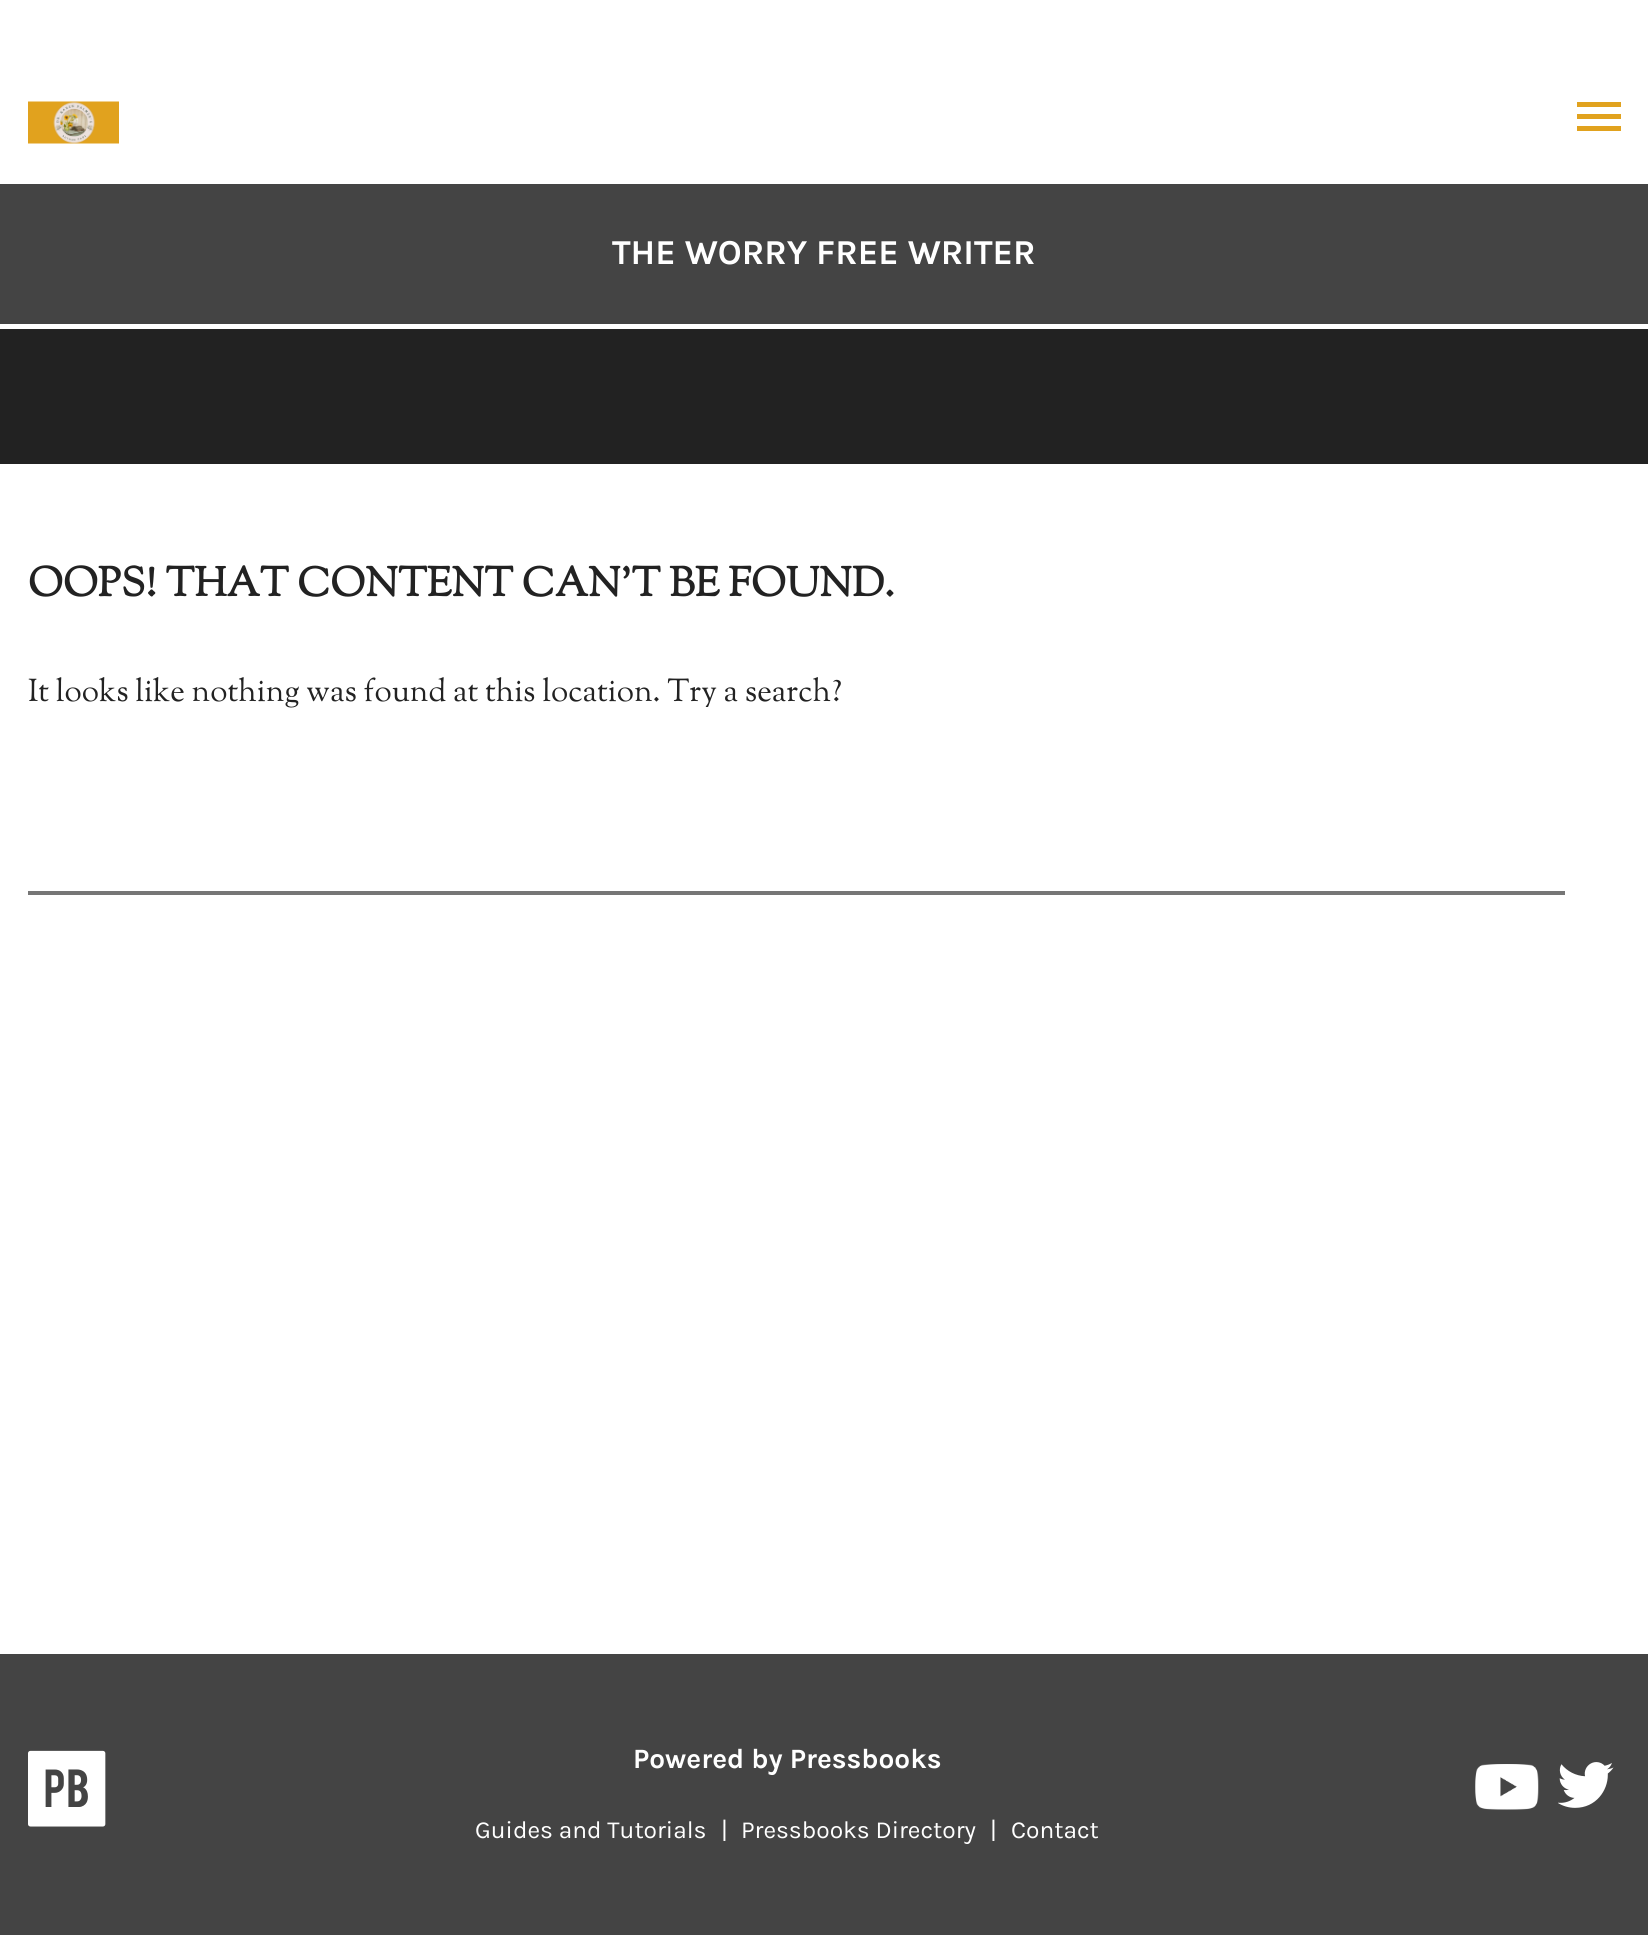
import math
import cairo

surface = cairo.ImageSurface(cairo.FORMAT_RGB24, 1648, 1935)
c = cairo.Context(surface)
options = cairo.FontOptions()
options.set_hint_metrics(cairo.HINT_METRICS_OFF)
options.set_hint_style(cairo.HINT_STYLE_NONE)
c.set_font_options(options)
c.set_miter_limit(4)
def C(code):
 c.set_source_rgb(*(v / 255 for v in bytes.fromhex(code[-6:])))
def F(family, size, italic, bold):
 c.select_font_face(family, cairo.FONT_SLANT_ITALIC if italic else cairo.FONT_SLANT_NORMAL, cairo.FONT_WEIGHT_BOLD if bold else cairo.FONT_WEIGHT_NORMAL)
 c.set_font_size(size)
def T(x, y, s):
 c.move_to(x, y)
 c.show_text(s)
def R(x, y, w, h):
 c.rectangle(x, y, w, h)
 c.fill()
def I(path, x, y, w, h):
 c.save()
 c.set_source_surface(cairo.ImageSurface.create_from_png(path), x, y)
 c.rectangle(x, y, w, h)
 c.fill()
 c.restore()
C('ffffff')
c.paint()
I('1.png',28,101,91,43)
C('e1a21e')
R(1577,114,44,5)
R(1577,102,44,5)
R(1577,126,44,5)
C('222222')
R(0,329,1648,135)
C('444444')
R(0,184,1648,140)
F('Karla',35,0,1)
C('ffffff')
T(612,264,'THE WORRY FREE WRITER')
F('Sorts Mill Goudy',40.95,0,1)
C('222222')
T(28,596,'OOPS! THAT CONTENT CAN’T BE FOUND.')
F('Sorts Mill Goudy',31.5,0,0)
T(28,701,'It looks like nothing was found at this location. Try a search?')
C('767676')
R(28,891,1537,4)
C('444444')
R(0,1654,1648,281)
I('2.png',28,1750,78,77)
F('Karla',28,0,1)
C('ffffff')
T(633,1768,'Powered by Pressbooks')
F('Karla',24.5,0,0)
T(475,1838,'Guides and Tutorials')
T(721,1838,'|')
T(741,1838,'Pressbooks Directory')
T(990,1838,'|')
T(1011,1838,'Contact')
I('3.png',1475,1764,64,46)
I('4.png',1558,1762,56,46)
surface.write_to_png('o.png')
